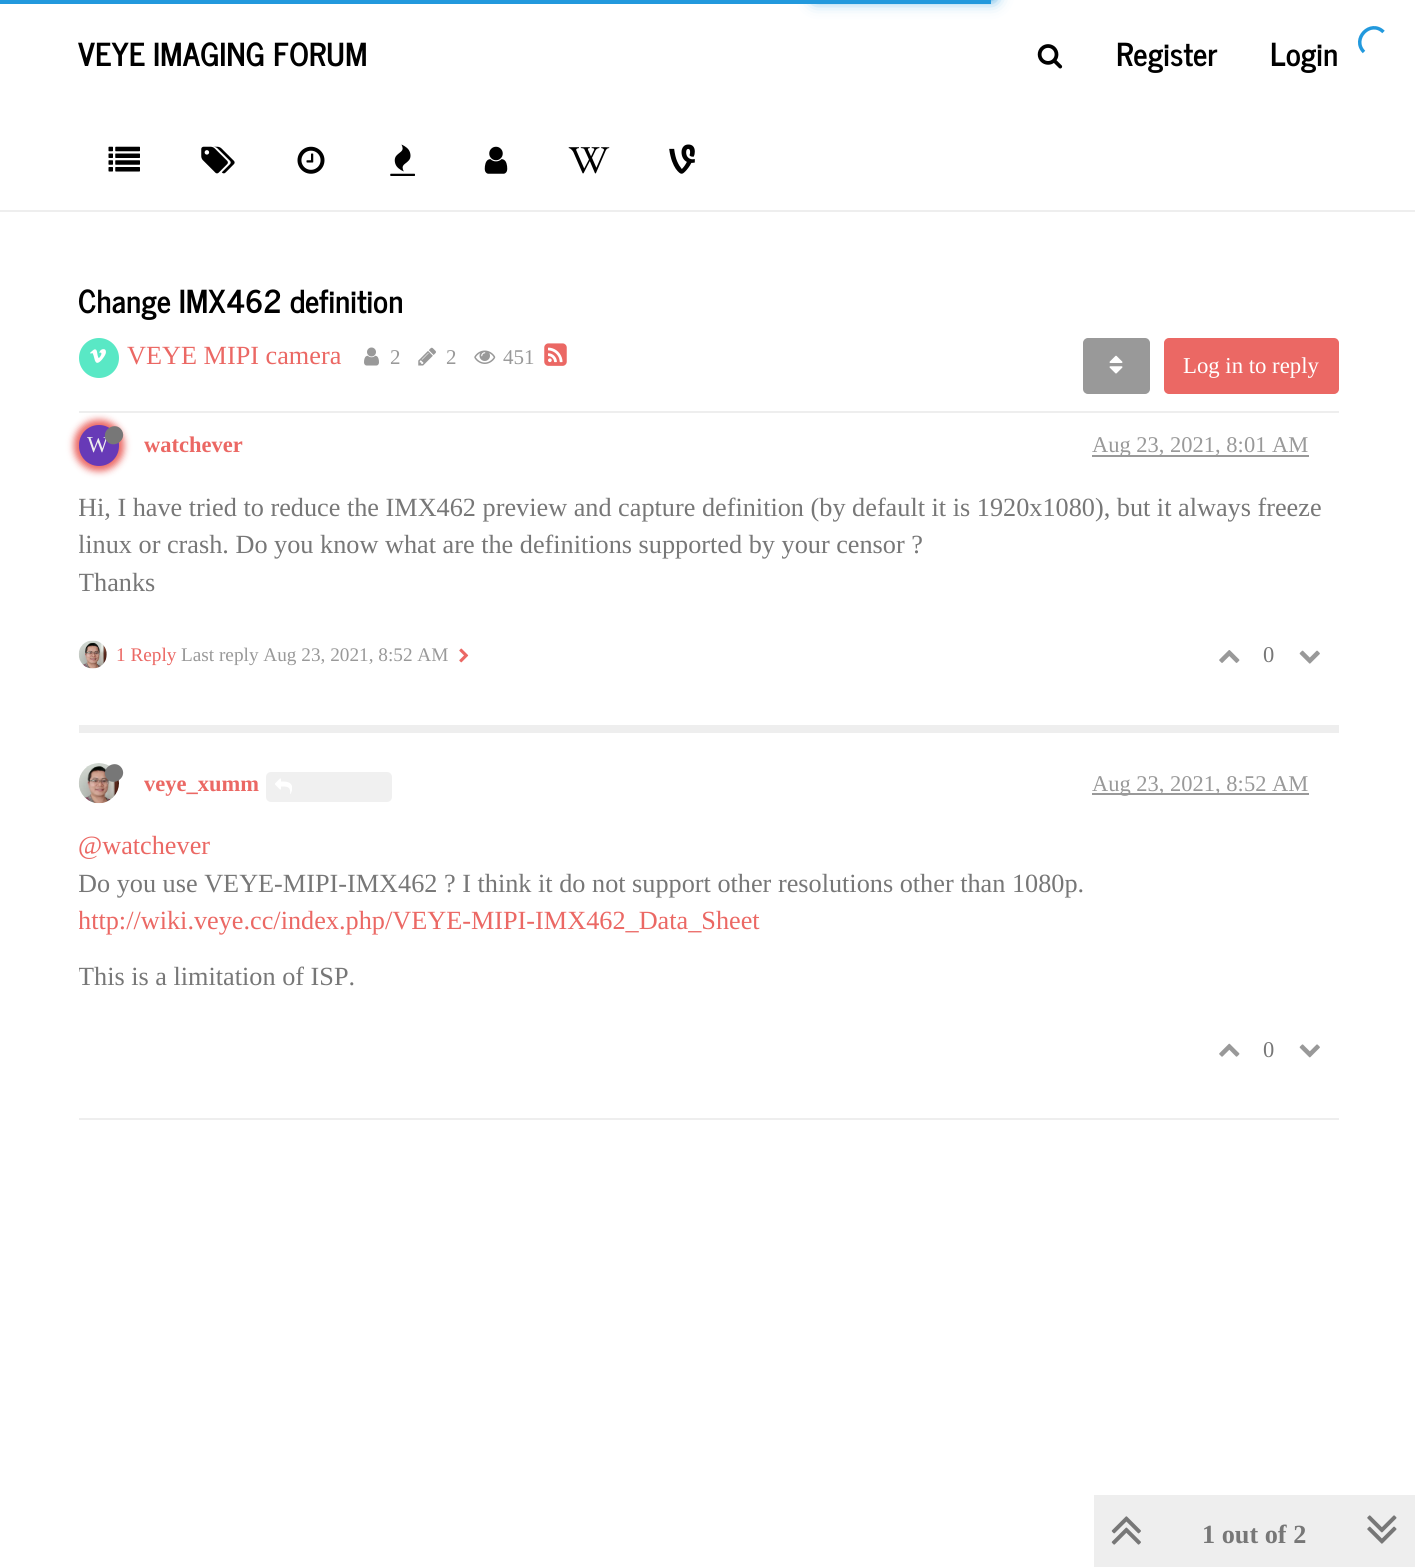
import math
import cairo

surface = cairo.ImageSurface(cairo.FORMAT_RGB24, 1415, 1567)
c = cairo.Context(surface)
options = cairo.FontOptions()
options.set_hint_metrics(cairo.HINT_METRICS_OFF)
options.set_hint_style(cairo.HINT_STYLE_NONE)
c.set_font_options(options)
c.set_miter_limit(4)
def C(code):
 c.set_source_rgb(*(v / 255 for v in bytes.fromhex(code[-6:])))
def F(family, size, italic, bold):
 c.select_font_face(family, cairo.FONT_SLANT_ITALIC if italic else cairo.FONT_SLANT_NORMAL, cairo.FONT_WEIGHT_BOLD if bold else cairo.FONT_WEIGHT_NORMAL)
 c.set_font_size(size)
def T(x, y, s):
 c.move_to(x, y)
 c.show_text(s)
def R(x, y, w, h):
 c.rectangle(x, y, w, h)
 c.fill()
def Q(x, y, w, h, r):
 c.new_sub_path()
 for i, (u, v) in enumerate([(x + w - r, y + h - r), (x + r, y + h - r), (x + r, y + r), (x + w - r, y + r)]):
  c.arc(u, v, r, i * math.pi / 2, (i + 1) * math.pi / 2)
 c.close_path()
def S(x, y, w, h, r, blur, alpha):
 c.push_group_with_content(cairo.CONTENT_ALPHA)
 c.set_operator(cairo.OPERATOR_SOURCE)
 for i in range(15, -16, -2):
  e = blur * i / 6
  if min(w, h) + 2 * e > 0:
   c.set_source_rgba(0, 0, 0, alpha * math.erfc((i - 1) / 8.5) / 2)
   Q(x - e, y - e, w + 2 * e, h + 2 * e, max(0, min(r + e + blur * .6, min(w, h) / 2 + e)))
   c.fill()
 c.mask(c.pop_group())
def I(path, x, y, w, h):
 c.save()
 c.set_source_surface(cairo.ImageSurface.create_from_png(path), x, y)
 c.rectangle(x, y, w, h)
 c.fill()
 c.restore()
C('ffffff')
c.paint()
C('2299dd')
R(0,0,991,4)
C('2299dd')
S(817,-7,175,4,0,4.5,1)
S(817,-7,175,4,0,9,1)
c.new_path()
c.move_to(1364,52)
c.curve_to(1351,39,1370.5,19,1383.5,32)
C('2299dd')
c.set_line_width(3.5)
c.stroke()
C('eeeeee')
R(0,210,1415,2)
F('News Cycle',31.5,0,1)
C('000000')
T(78,66,'VEYE IMAGING FORUM')
I('1.png',1037,44,26,25)
T(1116,66,'Register')
T(1270,66,'Login')
I('2.png',108,146,32,26)
I('3.png',201,146,34,28)
I('4.png',297,146,28,28)
I('5.png',390,144,25,32)
I('6.png',484,146,24,28)
I('7.png',568,147,42,27)
I('8.png',669,144,26,30)
T(78,313,'Change IMX462 definition')
C('eb6864')
S(74,420,50,51,25,3.5,1)
C('eeeeee')
R(79,411,1260,2)
C('59e8c5')
c.arc(99,358,20,0,2 * math.pi)
c.fill()
I('9.png',90,349,16,14)
F('Liberation Serif',26.25,0,0)
C('eb6864')
T(127,364,'VEYE MIPI camera')
I('10.png',364,347,15,19)
F('Liberation Serif',21,0,0)
C('999999')
T(390,364,'2')
I('11.png',418,347,18,19)
T(446,364,'2')
I('12.png',474,350,22,14)
T(503,364,'451')
I('13.png',544,343,23,23)
Q(1084,339,65,54,4)
c.fill_preserve()
c.set_line_width(2)
c.stroke()
I('14.png',1109,355,14,19)
C('eb6864')
Q(1165,339,173,54,4)
c.fill_preserve()
c.stroke()
F('Liberation Serif',22.75,0,0)
C('ffffff')
T(1183,373,'Log in to reply')
C('eeeeee')
R(79,725,1260,8)
C('673ab7')
Q(79,425,40,41,20)
c.fill()
C('eeeeee')
T(87,452,'W')
C('777777')
c.new_path()
c.move_to(122,430.5)
c.curve_to(127.5,441,112,450,106,440)
c.curve_to(100.5,429.5,116,420.5,122,430.5)
c.close_path()
c.fill()
F('Liberation Serif',22.5,0,1)
C('eb6864')
T(144,452,'watchever')
C('999999')
R(1092,455,217,2)
F('Liberation Serif',22.5,0,0)
T(1092,452,'Aug 23, 2021, 8:01 AM')
c.save()
c.rectangle(79,490,1260,133)
c.clip()
F('Liberation Serif',26.25,0,0)
C('777777')
T(78,516,'Hi, I have tried to reduce the IMX462 preview and capture definition (by default it is 1920x1080), but it always freeze')
T(78,553,'linux or crash. Do you know what are the definitions supported by your censor ?')
T(78,591,'Thanks')
c.restore()
I('15.png',78,640,29,29)
F('Liberation Serif',19.25,0,0)
C('eb6864')
T(116,661,'1 Reply')
C('999999')
T(181,661,'Last reply Aug 23, 2021, 8:52 AM')
I('16.png',459,648,10,15)
I('17.png',1219,650,21,13)
F('Liberation Serif',22.5,0,0)
C('777777')
T(1263,662,'0')
I('18.png',1299,650,21,14)
C('eeeeee')
R(79,1118,1260,2)
I('19.png',78,763,41,41)
C('777777')
c.new_path()
c.move_to(122,768.5)
c.curve_to(127.5,778.5,112,787.5,106,777.5)
c.curve_to(100.5,767.5,116,758.5,122,768.5)
c.close_path()
c.fill()
F('Liberation Serif',22.5,0,1)
C('eb6864')
T(144,791,'veye_xumm')
C('f0f0f0')
Q(266,772,126,30,5)
c.fill()
I('20.png',275,778,17,16)
C('999999')
R(1092,793,217,2)
F('Liberation Serif',22.5,0,0)
T(1092,791,'Aug 23, 2021, 8:52 AM')
F('Liberation Serif',26.25,0,0)
C('eb6864')
T(78,854,'@watchever')
c.save()
c.rectangle(79,828,1260,189)
c.clip()
C('777777')
T(78,892,'Do you use VEYE-MIPI-IMX462 ? I think it do not support other resolutions other than 1080p.')
C('eb6864')
T(78,929,'http://wiki.veye.cc/index.php/VEYE-MIPI-IMX462_Data_Sheet')
C('777777')
T(78,985,'This is a limitation of ISP.')
c.restore()
I('21.png',1219,1043,21,14)
F('Liberation Serif',22.5,0,0)
C('777777')
T(1263,1057,'0')
I('22.png',1299,1044,21,14)
C('eeeeee')
R(1094,1495,321,72)
I('23.png',1111,1516,30,29)
F('Liberation Serif',26.25,0,1)
C('777777')
T(1202,1543,'1 out of 2')
I('24.png',1367,1515,30,29)
surface.write_to_png('o.png')
